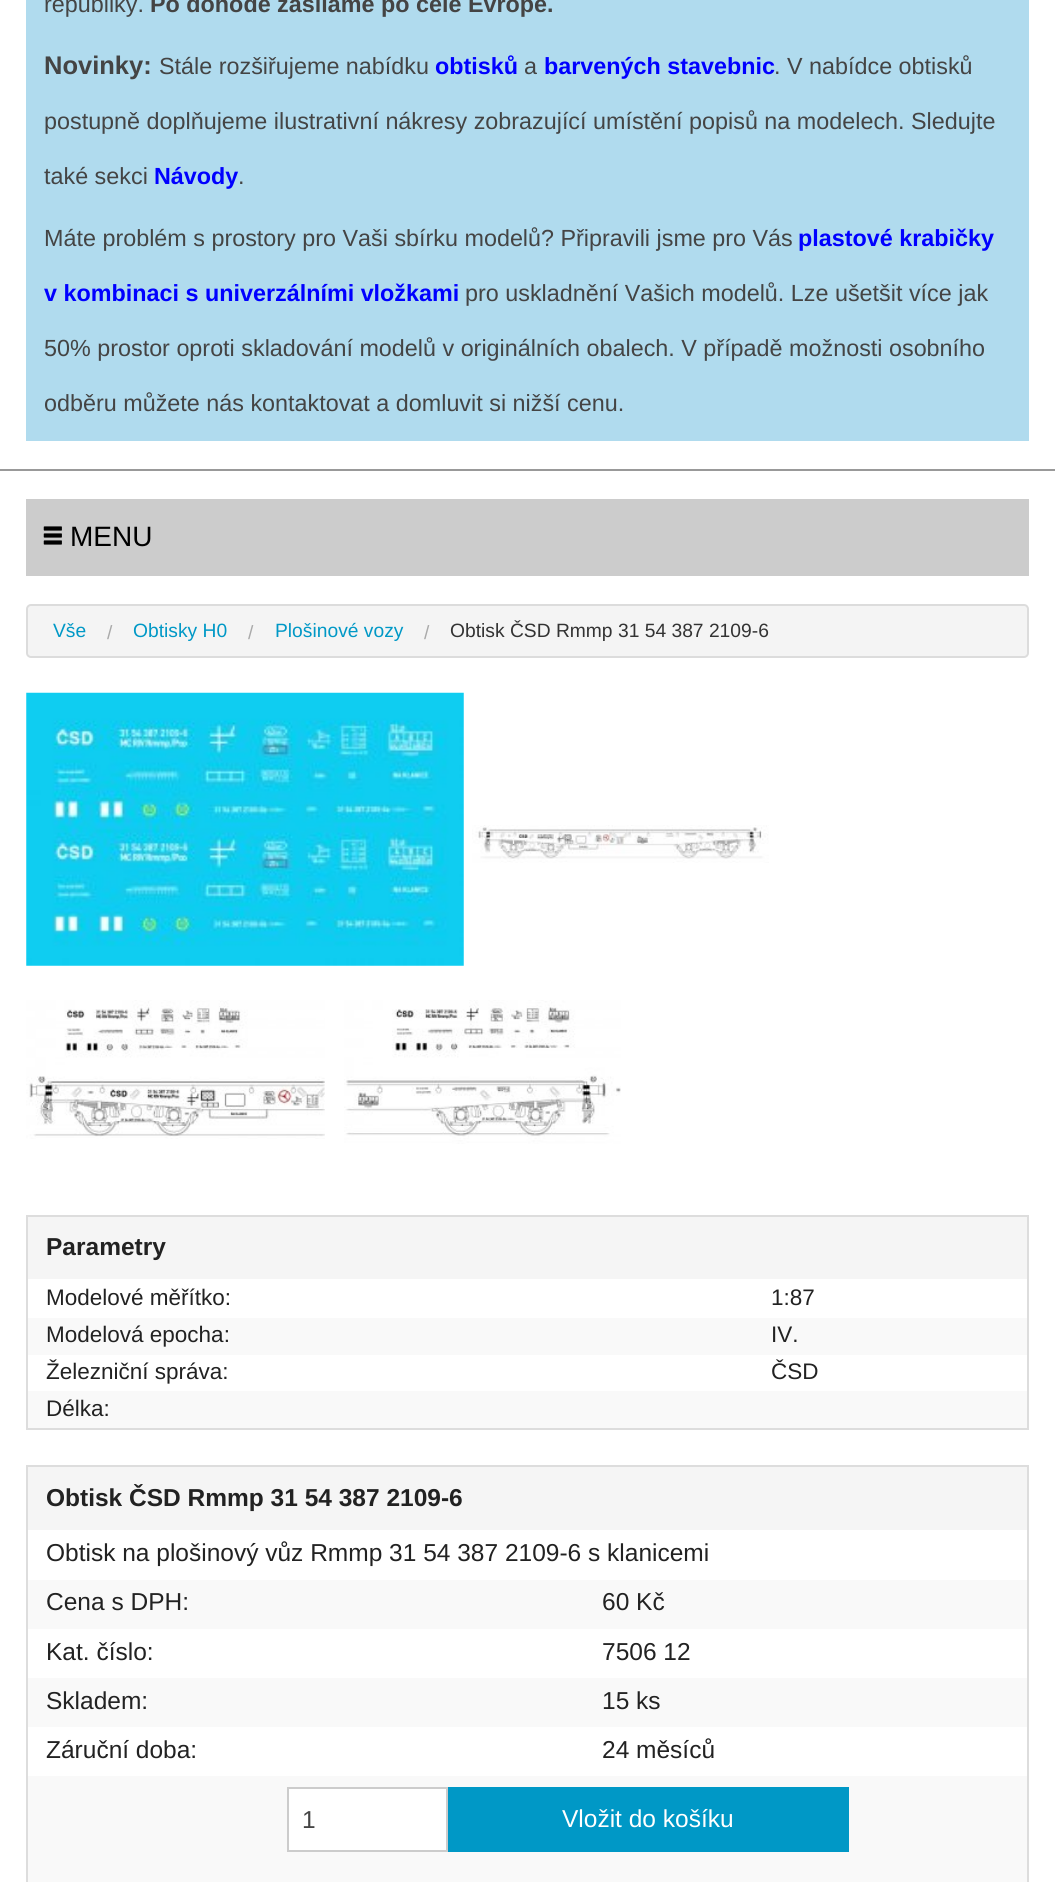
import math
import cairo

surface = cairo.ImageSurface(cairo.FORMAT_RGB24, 1055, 1882)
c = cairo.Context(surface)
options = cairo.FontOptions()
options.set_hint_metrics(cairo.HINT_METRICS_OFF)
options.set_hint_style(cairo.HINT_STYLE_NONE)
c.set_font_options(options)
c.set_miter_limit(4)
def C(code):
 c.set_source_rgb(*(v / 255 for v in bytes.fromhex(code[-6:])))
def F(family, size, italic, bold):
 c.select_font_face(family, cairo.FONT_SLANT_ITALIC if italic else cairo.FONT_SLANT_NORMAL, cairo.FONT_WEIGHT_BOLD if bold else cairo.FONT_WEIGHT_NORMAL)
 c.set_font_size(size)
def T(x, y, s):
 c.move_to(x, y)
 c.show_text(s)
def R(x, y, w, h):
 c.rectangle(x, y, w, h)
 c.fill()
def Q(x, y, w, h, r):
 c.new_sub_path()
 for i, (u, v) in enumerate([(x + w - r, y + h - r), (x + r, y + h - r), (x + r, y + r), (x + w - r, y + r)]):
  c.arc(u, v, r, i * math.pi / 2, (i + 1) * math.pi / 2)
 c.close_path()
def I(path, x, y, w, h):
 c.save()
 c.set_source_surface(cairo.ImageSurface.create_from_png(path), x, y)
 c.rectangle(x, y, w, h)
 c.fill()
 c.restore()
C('ffffff')
c.paint()
C('b0dbee')
R(26,0,1003,441)
F('Liberation Sans',23.35,0,0)
C('444444')
T(44,12,'republiky.')
F('Liberation Sans',23.35,0,1)
T(150,12,'Po dohodě zasíláme po celé Evropě.')
F('Liberation Sans',25.5,0,1)
T(44,74,'Novinky:')
F('Liberation Sans',23.35,0,0)
T(159,74,'Stále rozšiřujeme nabídku')
F('Liberation Sans',23.35,0,1)
C('0000ff')
T(435,74,'obtisků')
F('Liberation Sans',23.35,0,0)
C('444444')
T(524,74,'a')
F('Liberation Sans',23.35,0,1)
C('0000ff')
T(544,74,'barvených stavebnic')
F('Liberation Sans',23.35,0,0)
C('444444')
T(774,74,'. V nabídce obtisků')
T(44,129,'postupně doplňujeme ilustrativní nákresy zobrazující umístění popisů na modelech. Sledujte')
T(44,184,'také sekci')
F('Liberation Sans',23.35,0,1)
C('0000ff')
T(154,184,'Návody')
F('Liberation Sans',23.35,0,0)
C('444444')
T(238,184,'.')
T(44,246,'Máte problém s prostory pro Vaši sbírku modelů? Připravili jsme pro Vás')
F('Liberation Sans',23.35,0,1)
C('0000ff')
T(798,246,'plastové krabičky')
T(44,301,'v kombinaci s univerzálními vložkami')
F('Liberation Sans',23.35,0,0)
C('444444')
T(465,301,'pro uskladnění Vašich modelů. Lze ušetšit více jak')
T(44,356,'50% prostor oproti skladování modelů v originálních obalech. V případě možnosti osobního')
T(44,411,'odběru můžete nás kontaktovat a domluvit si nižší cenu.')
C('999999')
R(0,469,1055,2)
C('cccccc')
R(26,499,1003,77)
I('1.png',43,526,19,19)
F('Liberation Sans',28,0,0)
C('000000')
T(70,546,'MENU')
C('f4f4f4')
Q(27,605,1001,52,4)
c.fill_preserve()
C('dcdcdc')
c.stroke()
F('Liberation Sans',19.25,0,0)
C('0098c6')
T(53,637,'Vše')
C('aaaaaa')
T(107,639,'/')
C('0098c6')
T(133,637,'Obtisky H0')
C('aaaaaa')
T(248,639,'/')
C('0098c6')
T(275,637,'Plošinové vozy')
C('aaaaaa')
T(424,639,'/')
C('333333')
T(450,637,'Obtisk ČSD Rmmp 31 54 387 2109-6')
I('2.png',26,692,438,274)
I('3.png',472,825,297,38)
I('4.png',26,1000,299,139)
I('5.png',344,1000,277,144)
C('dddddd')
R(26,1215,1003,2)
R(1027,1215,2,215)
R(26,1428,1003,2)
R(26,1215,2,215)
C('f5f5f5')
R(28,1217,999,62)
F('Liberation Sans',24.5,0,1)
C('222222')
T(46,1255,'Parametry')
F('Liberation Sans',22.5,0,0)
T(46,1305,'Modelové měřítko:')
T(771,1305,'1:87')
C('f9f9f9')
R(28,1318,999,37)
C('222222')
T(46,1342,'Modelová epocha:')
T(771,1342,'IV.')
T(46,1379,'Železniční správa:')
T(771,1379,'ČSD')
C('f9f9f9')
R(28,1391,999,37)
C('222222')
T(46,1416,'Délka:')
C('dddddd')
R(26,1465,1003,2)
R(1027,1465,2,417)
R(26,1465,2,417)
C('f5f5f5')
R(28,1467,999,63)
F('Liberation Sans',24.5,0,1)
C('222222')
T(46,1506,'Obtisk ČSD Rmmp 31 54 387 2109-6')
F('Liberation Sans',24.5,0,0)
T(46,1561,'Obtisk na plošinový vůz Rmmp 31 54 387 2109-6 s klanicemi')
C('f9f9f9')
R(28,1580,999,49)
C('222222')
T(46,1610,'Cena s DPH:')
T(602,1610,'60 Kč')
T(46,1660,'Kat. číslo:')
T(602,1660,'7506 12')
C('f9f9f9')
R(28,1678,999,49)
C('222222')
T(46,1709,'Skladem:')
T(602,1709,'15 ks')
T(46,1758,'Záruční doba:')
T(602,1758,'24 měsíců')
C('f9f9f9')
R(28,1776,999,106)
C('ffffff')
c.rectangle(288,1788,159,63)
c.fill_preserve()
C('cccccc')
c.stroke()
C('444444')
T(302,1828,'1')
C('0098c6')
R(448,1787,401,65)
C('ffffff')
T(562,1827,'Vložit do košíku')
surface.write_to_png('o.png')
